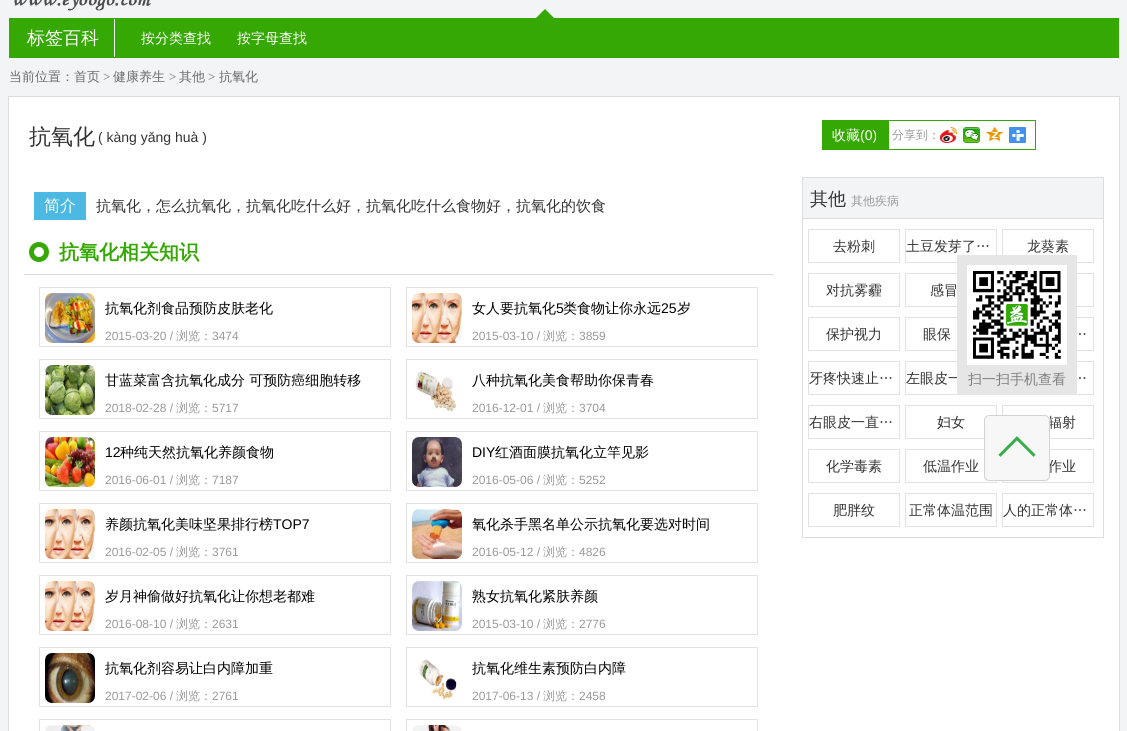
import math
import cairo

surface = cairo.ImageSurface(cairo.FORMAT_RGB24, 1127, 731)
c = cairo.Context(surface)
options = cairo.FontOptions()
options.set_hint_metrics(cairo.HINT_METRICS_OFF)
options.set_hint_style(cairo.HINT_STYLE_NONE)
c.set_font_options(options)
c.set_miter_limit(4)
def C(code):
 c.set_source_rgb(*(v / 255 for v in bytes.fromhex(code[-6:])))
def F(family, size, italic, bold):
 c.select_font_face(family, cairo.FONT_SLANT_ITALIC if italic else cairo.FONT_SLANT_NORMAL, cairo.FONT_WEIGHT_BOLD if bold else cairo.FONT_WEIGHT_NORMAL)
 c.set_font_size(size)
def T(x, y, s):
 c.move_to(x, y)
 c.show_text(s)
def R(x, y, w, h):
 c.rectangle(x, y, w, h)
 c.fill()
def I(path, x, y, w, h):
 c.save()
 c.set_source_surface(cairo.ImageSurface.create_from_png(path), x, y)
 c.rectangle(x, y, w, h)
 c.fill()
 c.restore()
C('f3f4f6')
c.paint()
I('1.png',14,0,137,11)
C('36a803')
c.new_path()
c.move_to(554,18)
c.line_to(536,18)
c.line_to(545,9)
c.close_path()
c.fill()
R(9,18,1110,40)
C('f3f4f6')
R(114,19,1,38)
F('WenQuanYi Zen Hei Medium',18,0,0)
C('ffffff')
T(27,44,'标签百科')
F('WenQuanYi Zen Hei Medium',14,0,0)
T(141,43,'按分类查找')
T(237,43,'按字母查找')
F('WenQuanYi Zen Hei Medium',13,0,0)
C('6a6a6a')
T(9,81,'当前位置：首页')
F('Liberation Serif',13,0,0)
T(103,81,'>')
F('WenQuanYi Zen Hei Medium',13,0,0)
T(113,81,'健康养生')
F('Liberation Serif',13,0,0)
T(169,81,'>')
F('WenQuanYi Zen Hei Medium',13,0,0)
T(179,81,'其他')
F('Liberation Serif',13,0,0)
T(208,81,'>')
F('WenQuanYi Zen Hei Medium',13,0,0)
T(219,81,'抗氧化')
C('ffffff')
c.rectangle(8.5,96.5,1111,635)
c.fill_preserve()
C('dddddd')
c.set_line_width(1)
c.stroke()
F('WenQuanYi Zen Hei Medium',22,0,0)
C('333333')
T(29,144,'抗氧化')
F('Liberation Sans',14,0,0)
T(98,142,'( kàng yǎng huà )')
C('36a803')
R(822,120,66,30)
F('WenQuanYi Zen Hei Medium',14,0,0)
C('ffffff')
T(832,140,'收藏')
F('Liberation Sans',14,0,0)
T(860,140,'(0)')
c.rectangle(888.5,120.5,147,29)
C('36a803')
c.stroke()
F('WenQuanYi Zen Hei Medium',12,0,0)
C('999999')
T(892,139,'分享到：')
I('2.png',940,127,17,16)
I('3.png',963,127,17,16)
I('4.png',986,127,17,14)
I('5.png',1009,127,17,16)
C('4bb9e1')
R(34,192,52,28)
F('WenQuanYi Zen Hei Medium',16,0,0)
C('ffffff')
T(44,211,'简介')
F('WenQuanYi Zen Hei Medium',15,0,0)
C('333333')
T(96,211,'抗氧化，怎么抗氧化，抗氧化吃什么好，抗氧化吃什么食物好，抗氧化的饮食')
C('dddddd')
R(24,274,750,1)
c.new_path()
c.arc(39,252,7.5,0,2 * math.pi)
C('36a803')
c.set_line_width(5)
c.stroke()
F('WenQuanYi Zen Hei',20,0,1)
T(59,259,'抗氧化相关知识')
c.rectangle(39.5,287.5,351,59)
C('e2e2e2')
c.set_line_width(1)
c.stroke()
I('6.png',45,293,50,50)
F('WenQuanYi Zen Hei Medium',14,0,0)
C('000000')
T(105,313,'抗氧化剂食品预防皮肤老化')
F('Liberation Sans',12,0,0)
C('999999')
T(105,340,'2015-03-20 /')
F('WenQuanYi Zen Hei Medium',12,0,0)
T(176,340,'浏览：')
F('Liberation Sans',12,0,0)
T(212,340,'3474')
c.rectangle(406.5,287.5,351,59)
C('e2e2e2')
c.stroke()
I('7.png',412,293,50,50)
F('WenQuanYi Zen Hei Medium',14,0,0)
C('000000')
T(472,313,'女人要抗氧化')
F('Liberation Sans',14,0,0)
T(556,313,'5')
F('WenQuanYi Zen Hei Medium',14,0,0)
T(563,313,'类食物让你永远')
F('Liberation Sans',14,0,0)
T(661,313,'25')
F('WenQuanYi Zen Hei Medium',14,0,0)
T(677,313,'岁')
F('Liberation Sans',12,0,0)
C('999999')
T(472,340,'2015-03-10 /')
F('WenQuanYi Zen Hei Medium',12,0,0)
T(543,340,'浏览：')
F('Liberation Sans',12,0,0)
T(579,340,'3859')
c.rectangle(39.5,359.5,351,59)
C('e2e2e2')
c.stroke()
I('8.png',45,365,50,50)
F('WenQuanYi Zen Hei Medium',14,0,0)
C('000000')
T(105,385,'甘蓝菜富含抗氧化成分 可预防癌细胞转移')
F('Liberation Sans',12,0,0)
C('999999')
T(105,412,'2018-02-28 /')
F('WenQuanYi Zen Hei Medium',12,0,0)
T(176,412,'浏览：')
F('Liberation Sans',12,0,0)
T(212,412,'5717')
c.rectangle(406.5,359.5,351,59)
C('e2e2e2')
c.stroke()
I('9.png',415,371,42,41)
F('WenQuanYi Zen Hei Medium',14,0,0)
C('000000')
T(472,385,'八种抗氧化美食帮助你保青春')
F('Liberation Sans',12,0,0)
C('999999')
T(472,412,'2016-12-01 /')
F('WenQuanYi Zen Hei Medium',12,0,0)
T(543,412,'浏览：')
F('Liberation Sans',12,0,0)
T(579,412,'3704')
c.rectangle(39.5,431.5,351,59)
C('e2e2e2')
c.stroke()
I('10.png',45,437,50,50)
F('Liberation Sans',14,0,0)
C('000000')
T(105,457,'12')
F('WenQuanYi Zen Hei Medium',14,0,0)
T(120,457,'种纯天然抗氧化养颜食物')
F('Liberation Sans',12,0,0)
C('999999')
T(105,484,'2016-06-01 /')
F('WenQuanYi Zen Hei Medium',12,0,0)
T(176,484,'浏览：')
F('Liberation Sans',12,0,0)
T(212,484,'7187')
c.rectangle(406.5,431.5,351,59)
C('e2e2e2')
c.stroke()
I('11.png',412,437,50,50)
F('Liberation Sans',14,0,0)
C('000000')
T(472,457,'DIY')
F('WenQuanYi Zen Hei Medium',14,0,0)
T(495,457,'红酒面膜抗氧化立竿见影')
F('Liberation Sans',12,0,0)
C('999999')
T(472,484,'2016-05-06 /')
F('WenQuanYi Zen Hei Medium',12,0,0)
T(543,484,'浏览：')
F('Liberation Sans',12,0,0)
T(579,484,'5252')
c.rectangle(39.5,503.5,351,59)
C('e2e2e2')
c.stroke()
I('12.png',45,509,50,50)
F('WenQuanYi Zen Hei Medium',14,0,0)
C('000000')
T(105,529,'养颜抗氧化美味坚果排行榜')
F('Liberation Sans',14,0,0)
T(273,529,'TOP7')
F('Liberation Sans',12,0,0)
C('999999')
T(105,556,'2016-02-05 /')
F('WenQuanYi Zen Hei Medium',12,0,0)
T(176,556,'浏览：')
F('Liberation Sans',12,0,0)
T(212,556,'3761')
c.rectangle(406.5,503.5,351,59)
C('e2e2e2')
c.stroke()
I('13.png',412,509,50,50)
F('WenQuanYi Zen Hei Medium',14,0,0)
C('000000')
T(472,529,'氧化杀手黑名单公示抗氧化要选对时间')
F('Liberation Sans',12,0,0)
C('999999')
T(472,556,'2016-05-12 /')
F('WenQuanYi Zen Hei Medium',12,0,0)
T(543,556,'浏览：')
F('Liberation Sans',12,0,0)
T(579,556,'4826')
c.rectangle(39.5,575.5,351,59)
C('e2e2e2')
c.stroke()
I('12.png',45,581,50,50)
F('WenQuanYi Zen Hei Medium',14,0,0)
C('000000')
T(105,601,'岁月神偷做好抗氧化让你想老都难')
F('Liberation Sans',12,0,0)
C('999999')
T(105,628,'2016-08-10 /')
F('WenQuanYi Zen Hei Medium',12,0,0)
T(176,628,'浏览：')
F('Liberation Sans',12,0,0)
T(212,628,'2631')
c.rectangle(406.5,575.5,351,59)
C('e2e2e2')
c.stroke()
I('14.png',412,581,50,50)
F('WenQuanYi Zen Hei Medium',14,0,0)
C('000000')
T(472,601,'熟女抗氧化紧肤养颜')
F('Liberation Sans',12,0,0)
C('999999')
T(472,628,'2015-03-10 /')
F('WenQuanYi Zen Hei Medium',12,0,0)
T(543,628,'浏览：')
F('Liberation Sans',12,0,0)
T(579,628,'2776')
c.rectangle(39.5,647.5,351,59)
C('e2e2e2')
c.stroke()
I('15.png',45,653,50,50)
F('WenQuanYi Zen Hei Medium',14,0,0)
C('000000')
T(105,673,'抗氧化剂容易让白内障加重')
F('Liberation Sans',12,0,0)
C('999999')
T(105,700,'2017-02-06 /')
F('WenQuanYi Zen Hei Medium',12,0,0)
T(176,700,'浏览：')
F('Liberation Sans',12,0,0)
T(212,700,'2761')
c.rectangle(406.5,647.5,351,59)
C('e2e2e2')
c.stroke()
I('16.png',418,659,39,42)
F('WenQuanYi Zen Hei Medium',14,0,0)
C('000000')
T(472,673,'抗氧化维生素预防白内障')
F('Liberation Sans',12,0,0)
C('999999')
T(472,700,'2017-06-13 /')
F('WenQuanYi Zen Hei Medium',12,0,0)
T(543,700,'浏览：')
F('Liberation Sans',12,0,0)
T(579,700,'2458')
c.rectangle(39.5,719.5,351,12)
C('e2e2e2')
c.stroke()
I('17.png',45,725,50,6)
c.rectangle(406.5,719.5,351,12)
c.stroke()
I('18.png',412,725,50,6)
C('f3f4f6')
c.rectangle(802.5,177.5,301,41)
c.fill_preserve()
C('dddddd')
c.stroke()
F('WenQuanYi Zen Hei Medium',18,0,0)
C('333333')
T(810,205,'其他')
F('WenQuanYi Zen Hei Medium',12,0,0)
C('999999')
T(851,205,'其他疾病')
C('dddddd')
R(1103,219,1,319)
R(802,537,302,1)
R(802,219,1,319)
c.rectangle(808.5,229.5,91,33)
C('e2e2e2')
c.stroke()
F('WenQuanYi Zen Hei Medium',14,0,0)
C('333333')
T(833,251,'去粉刺')
c.rectangle(905.5,229.5,91,33)
C('e2e2e2')
c.stroke()
C('333333')
T(906,251,'土豆发芽了…')
c.rectangle(1002.5,229.5,91,33)
C('e2e2e2')
c.stroke()
C('333333')
T(1027,251,'龙葵素')
c.rectangle(808.5,273.5,91,33)
C('e2e2e2')
c.stroke()
C('333333')
T(826,295,'对抗雾霾')
c.rectangle(905.5,273.5,91,33)
C('e2e2e2')
c.stroke()
C('333333')
T(930,295,'感冒')
c.rectangle(1002.5,273.5,91,33)
C('e2e2e2')
c.stroke()
c.rectangle(808.5,317.5,91,33)
c.stroke()
C('333333')
T(826,339,'保护视力')
c.rectangle(905.5,317.5,91,33)
C('e2e2e2')
c.stroke()
C('333333')
T(923,339,'眼保')
c.rectangle(1002.5,317.5,91,33)
C('e2e2e2')
c.stroke()
C('333333')
T(1073,339,'…')
c.rectangle(808.5,361.5,91,33)
C('e2e2e2')
c.stroke()
C('333333')
T(809,383,'牙疼快速止…')
c.rectangle(905.5,361.5,91,33)
C('e2e2e2')
c.stroke()
C('333333')
T(906,383,'左眼皮一')
c.rectangle(1002.5,361.5,91,33)
C('e2e2e2')
c.stroke()
C('333333')
T(1073,383,'…')
c.rectangle(808.5,405.5,91,33)
C('e2e2e2')
c.stroke()
C('333333')
T(809,427,'右眼皮一直…')
c.rectangle(905.5,405.5,91,33)
C('e2e2e2')
c.stroke()
C('333333')
T(937,427,'妇女')
c.rectangle(1002.5,405.5,91,33)
C('e2e2e2')
c.stroke()
C('333333')
T(1048,427,'辐射')
c.rectangle(808.5,449.5,91,33)
C('e2e2e2')
c.stroke()
C('333333')
T(826,471,'化学毒素')
c.rectangle(905.5,449.5,91,33)
C('e2e2e2')
c.stroke()
C('333333')
T(923,471,'低温作业')
c.rectangle(1002.5,449.5,91,33)
C('e2e2e2')
c.stroke()
C('333333')
T(1048,471,'作业')
c.rectangle(808.5,493.5,91,33)
C('e2e2e2')
c.stroke()
C('333333')
T(833,515,'肥胖纹')
c.rectangle(905.5,493.5,91,33)
C('e2e2e2')
c.stroke()
C('333333')
T(909,515,'正常体温范围')
c.rectangle(1002.5,493.5,91,33)
C('e2e2e2')
c.stroke()
C('333333')
T(1003,515,'人的正常体…')
C('e6e6e6')
R(957,255,120,140)
I('19.png',967,265,100,100)
C('7f7f7f')
T(968,384,'扫一扫手机查看')
I('20.png',984,415,66,66)
surface.write_to_png('o.png')
